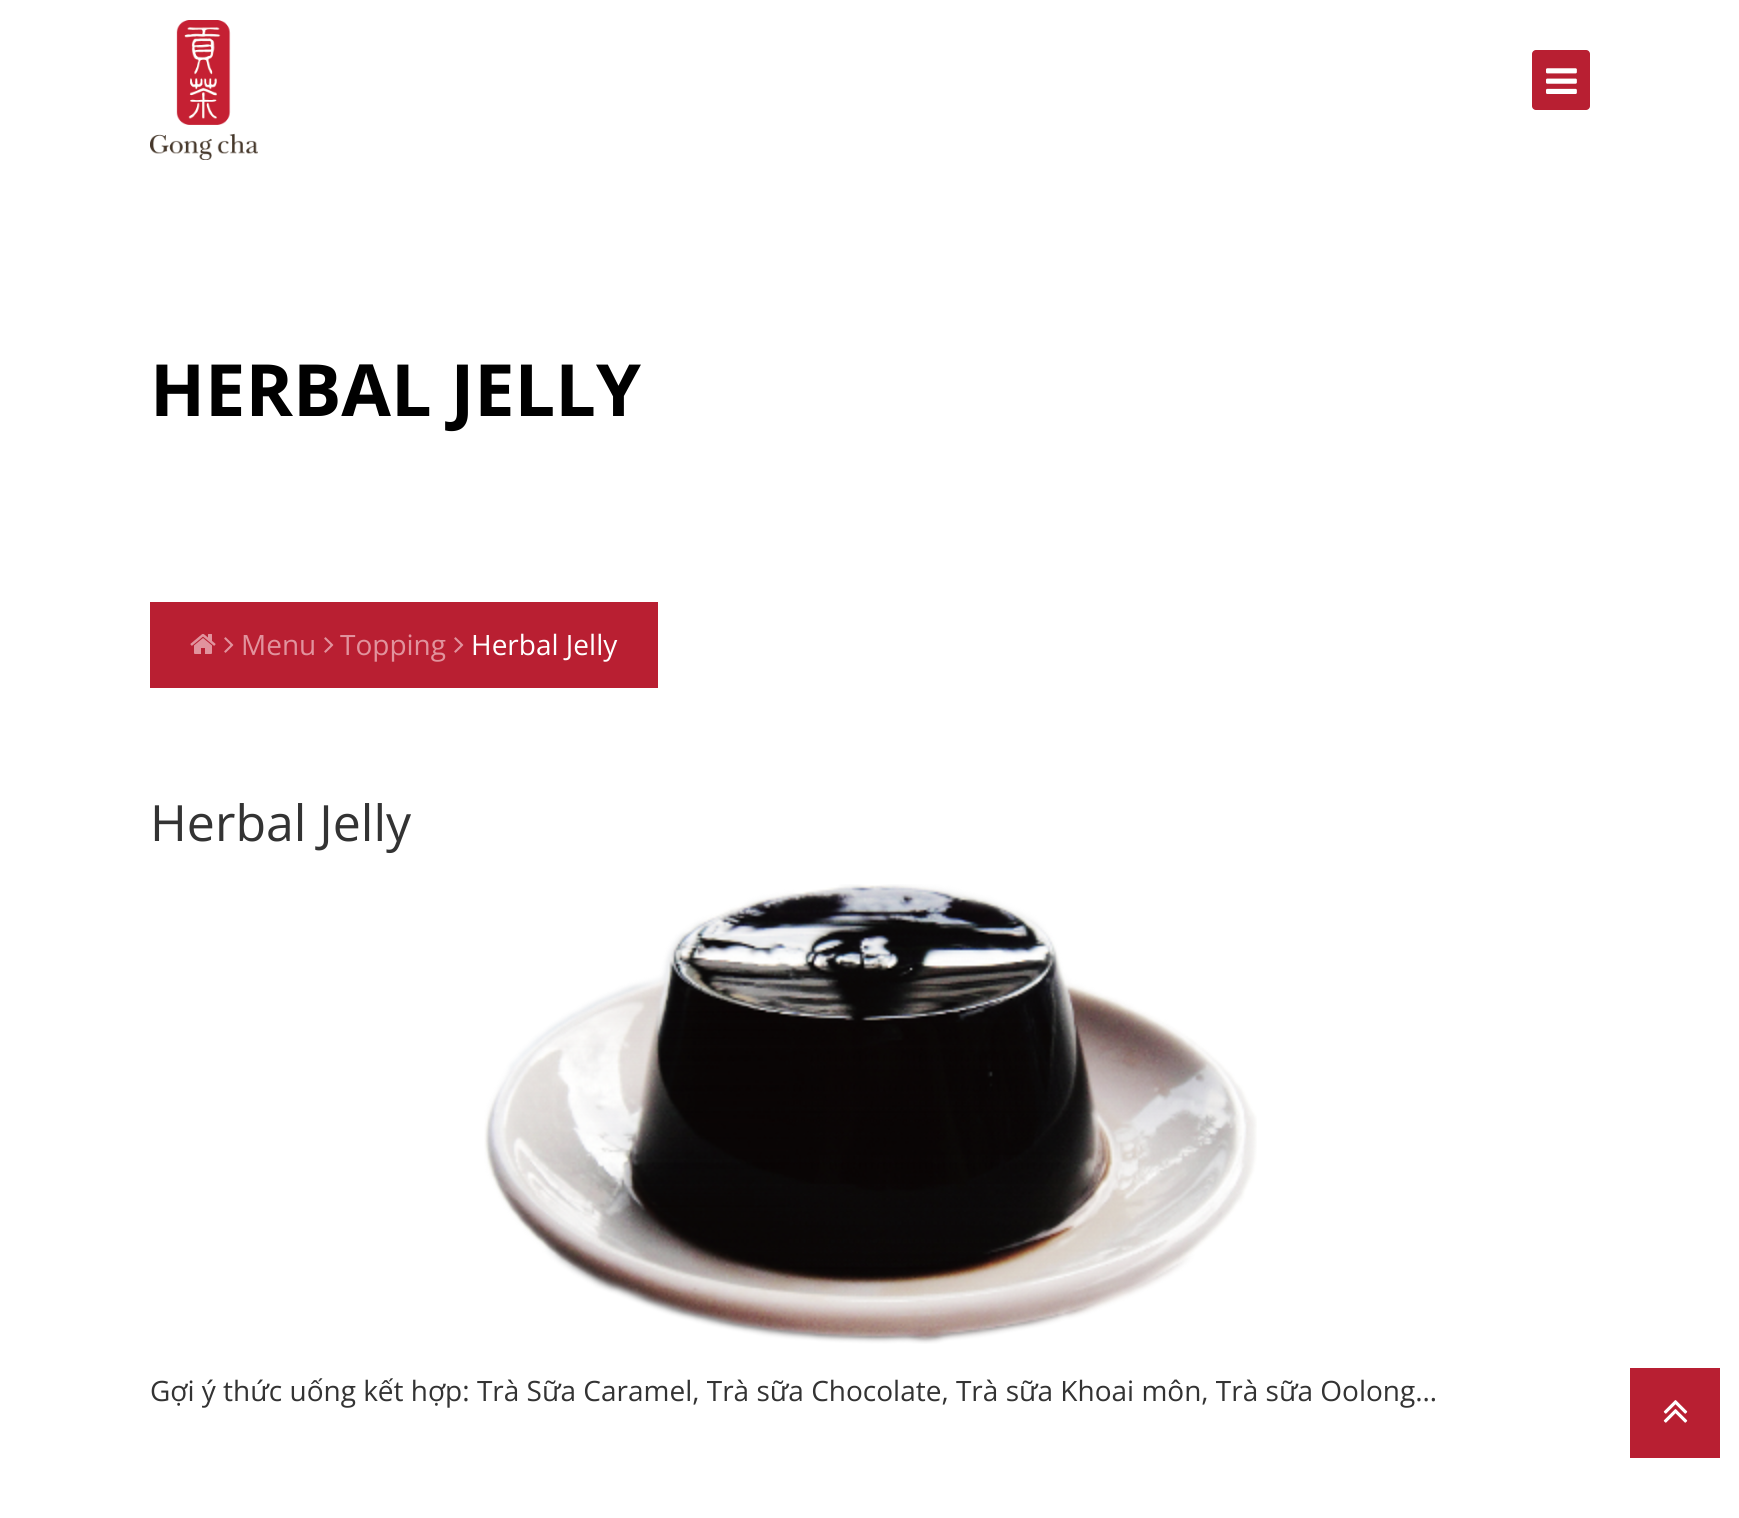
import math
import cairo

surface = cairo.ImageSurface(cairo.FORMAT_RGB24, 1739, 1518)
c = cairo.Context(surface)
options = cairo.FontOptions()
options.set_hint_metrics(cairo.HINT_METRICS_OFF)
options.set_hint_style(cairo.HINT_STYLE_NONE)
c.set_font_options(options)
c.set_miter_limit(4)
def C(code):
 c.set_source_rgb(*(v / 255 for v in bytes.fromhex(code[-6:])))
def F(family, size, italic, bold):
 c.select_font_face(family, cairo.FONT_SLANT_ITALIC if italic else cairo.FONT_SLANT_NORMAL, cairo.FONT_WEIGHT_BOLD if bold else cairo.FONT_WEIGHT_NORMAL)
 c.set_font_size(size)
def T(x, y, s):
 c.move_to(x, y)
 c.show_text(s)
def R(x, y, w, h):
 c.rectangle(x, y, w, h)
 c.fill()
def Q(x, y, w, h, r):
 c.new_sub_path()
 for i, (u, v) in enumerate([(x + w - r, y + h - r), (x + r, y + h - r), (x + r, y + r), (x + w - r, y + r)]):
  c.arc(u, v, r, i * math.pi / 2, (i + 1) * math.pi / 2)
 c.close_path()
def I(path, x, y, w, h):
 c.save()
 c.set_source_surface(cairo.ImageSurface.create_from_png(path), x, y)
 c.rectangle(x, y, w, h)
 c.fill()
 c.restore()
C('ffffff')
c.paint()
I('1.png',150,20,108,140)
C('b81f32')
Q(1532,50,58,60,4)
c.fill()
I('2.png',1546,68,31,26)
F('Open Sans',72,0,1)
C('000000')
T(150,416,'HERBAL JELLY')
C('b91f32')
R(150,602,508,86)
I('3.png',190,634,26,20)
I('4.png',224,637,10,16)
F('Open Sans',28,0,0)
C('e1939d')
T(241,655,'Menu')
I('4.png',324,637,10,16)
T(340,655,'Topping')
I('4.png',454,637,10,16)
C('ffffff')
T(471,655,'Herbal Jelly')
F('Open Sans',50,0,0)
C('333333')
T(150,841,'Herbal Jelly')
I('5.png',484,884,773,460)
F('Open Sans',28,0,0)
T(150,1401,'Gợi ý thức uống kết hợp: Trà Sữa Caramel, Trà sữa Chocolate, Trà sữa Khoai môn, Trà sữa Oolong…')
C('b81f32')
R(1630,1368,90,90)
I('6.png',1663,1400,25,23)
surface.write_to_png('o.png')
